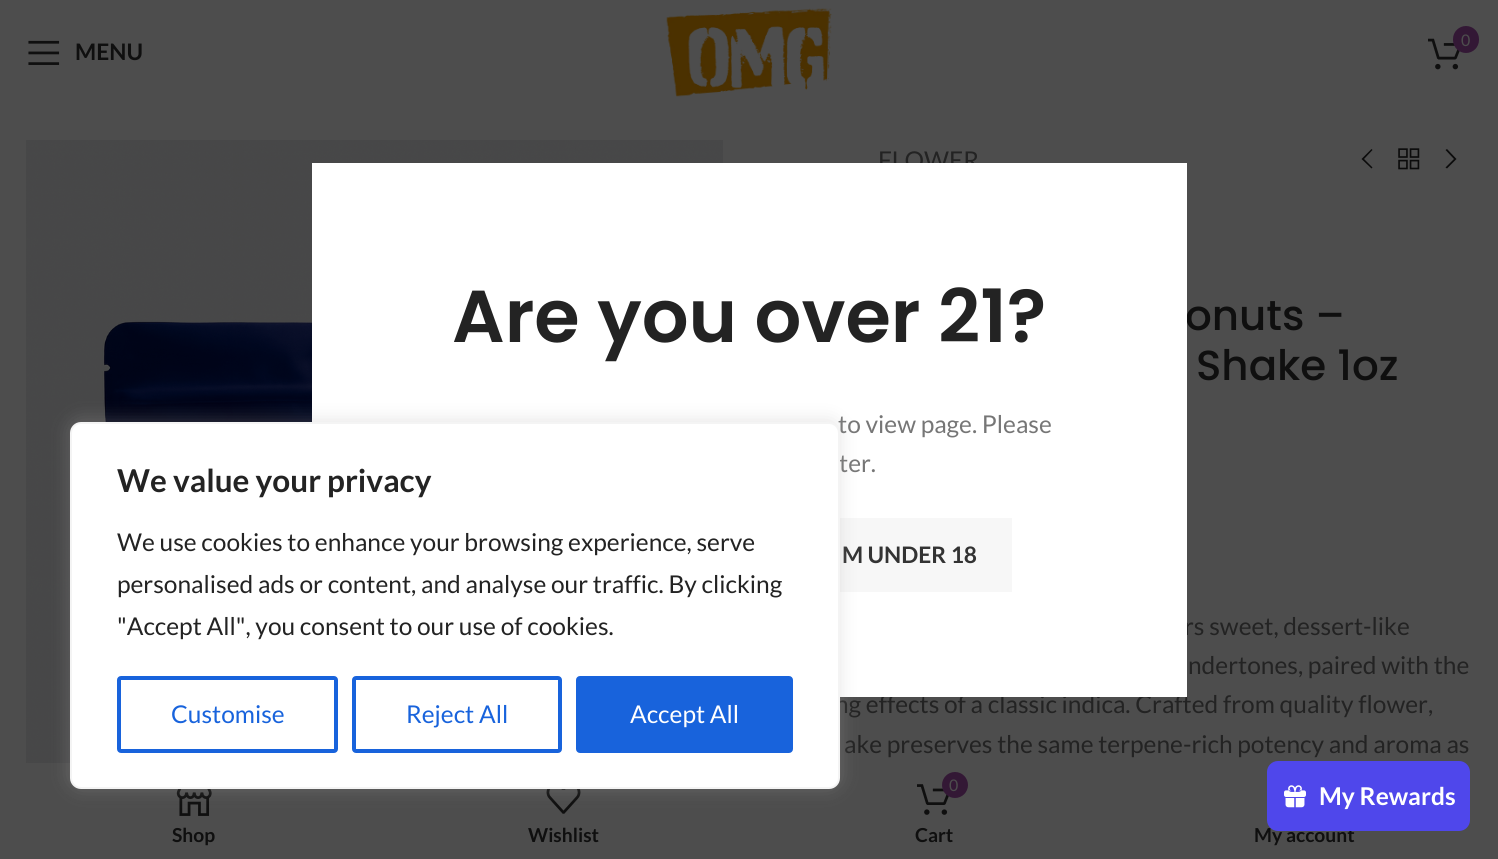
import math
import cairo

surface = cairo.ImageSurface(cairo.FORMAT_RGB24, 1498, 859)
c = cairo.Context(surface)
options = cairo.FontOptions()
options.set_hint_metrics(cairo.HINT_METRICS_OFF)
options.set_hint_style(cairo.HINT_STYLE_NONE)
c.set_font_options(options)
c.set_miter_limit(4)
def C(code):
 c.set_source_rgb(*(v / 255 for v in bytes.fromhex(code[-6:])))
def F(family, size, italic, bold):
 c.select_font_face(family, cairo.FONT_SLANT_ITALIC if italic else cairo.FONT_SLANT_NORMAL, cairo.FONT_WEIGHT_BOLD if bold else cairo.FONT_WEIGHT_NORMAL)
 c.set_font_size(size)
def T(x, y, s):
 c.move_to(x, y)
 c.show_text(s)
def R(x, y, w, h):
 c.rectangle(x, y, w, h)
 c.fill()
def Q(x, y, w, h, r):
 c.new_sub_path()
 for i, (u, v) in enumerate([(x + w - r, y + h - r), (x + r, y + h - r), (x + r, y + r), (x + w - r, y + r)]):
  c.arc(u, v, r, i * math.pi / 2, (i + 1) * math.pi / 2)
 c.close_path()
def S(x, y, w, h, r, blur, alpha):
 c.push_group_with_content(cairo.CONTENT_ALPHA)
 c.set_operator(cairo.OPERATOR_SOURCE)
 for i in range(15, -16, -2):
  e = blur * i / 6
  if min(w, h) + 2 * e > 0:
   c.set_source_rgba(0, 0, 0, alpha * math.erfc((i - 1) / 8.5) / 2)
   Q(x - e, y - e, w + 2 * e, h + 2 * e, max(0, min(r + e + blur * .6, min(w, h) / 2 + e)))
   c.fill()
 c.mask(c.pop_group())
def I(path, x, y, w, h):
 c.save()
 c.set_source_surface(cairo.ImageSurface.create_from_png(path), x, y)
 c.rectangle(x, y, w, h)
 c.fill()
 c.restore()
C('4d4d4d')
c.paint()
I('1.png',666,8,166,89)
I('2.png',1428,38,32,32)
C('331835')
Q(1453,26,26,27,13)
c.fill()
F('Lato',16,0,0)
C('4d4d4d')
T(1461,46,'0')
I('3.png',28,40,32,25)
F('Lato',22.75,0,1)
C('0f0f0f')
T(75,60,'MENU')
I('4.png',26,140,697,623)
F('Lato',24.5,0,0)
C('232323')
T(878,169,'FLOWER')
C('0b0b0b')
c.new_path()
c.move_to(1372.5,150)
c.line_to(1371.5,149)
c.line_to(1361.5,159)
c.line_to(1371.5,168.5)
c.line_to(1372.5,167.5)
c.line_to(1364,159)
c.close_path()
c.fill()
I('5.png',1398,148,22,22)
c.new_path()
c.move_to(1445.5,150)
c.line_to(1454,159)
c.line_to(1445.5,167.5)
c.line_to(1447,168.5)
c.line_to(1456.5,159)
c.line_to(1447,149)
c.close_path()
c.fill()
F('Poppins Medium',42,0,0)
C('0f0f0f')
T(1185,330,'onuts –')
T(1196,380,'Shake 1oz')
F('Lato',24.5,0,0)
C('232323')
T(1184,635,'rs sweet, dessert-like')
T(1188,674,'ndertones, paired with the')
T(835,713,'ng effects of a classic indica. Crafted from quality flower,')
T(844,753,'ake preserves the same terpene-rich potency and aroma as')
C('ffffff')
R(312,163,875,534)
F('Poppins SemiBold',73.5,0,0)
C('232323')
T(452,342,'Are you over 21?')
F('Lato',24.5,0,0)
C('767676')
T(838,433,'to view page. Please')
T(839,472,'ter.')
C('f7f7f7')
R(840,518,172,74)
F('Lato',22.75,0,1)
C('333333')
T(842,563,'M UNDER 18')
I('6.png',176,789,36,27)
I('7.png',546,789,35,25)
C('acabab')
S(70,420,770,368,11,9,.3)
C('ffffff')
Q(71,423,768,365,10)
c.fill_preserve()
C('f4f4f4')
c.stroke()
F('Lato',31.5,0,1)
C('232323')
T(117,492,'We value your privacy')
F('Lato',24.5,0,0)
T(117,551,'We use cookies to enhance your browsing experience, serve')
T(117,593,'personalised ads or content, and analyse our traffic. By clicking')
T(117,635,'"Accept All", you consent to our use of cookies.')
Q(119,678,217,73,2)
C('1863dc')
c.set_line_width(4)
c.stroke()
T(171,723,'Customise')
Q(354,678,206,73,2)
c.stroke()
T(406,723,'Reject All')
Q(578,678,213,73,2)
c.fill_preserve()
c.stroke()
C('ffffff')
T(630,723,'Accept All')
F('Lato',19.25,0,1)
C('0f0f0f')
T(172,842,'Shop')
T(528,842,'Wishlist')
I('8.png',917,784,32,31)
C('331835')
c.arc(955,785,13,0,2 * math.pi)
c.fill()
F('Lato',16,0,0)
C('4d4d4d')
T(949,791,'0')
F('Lato',19.25,0,1)
C('0f0f0f')
T(915,842,'Cart')
T(1254,842,'My account')
C('4f47eb')
Q(1267,761,203,70,11)
c.fill()
I('9.png',1284,785,22,23)
F('Lato',24.5,0,1)
C('ffffff')
T(1319,805,'My Rewards')
surface.write_to_png('o.png')
